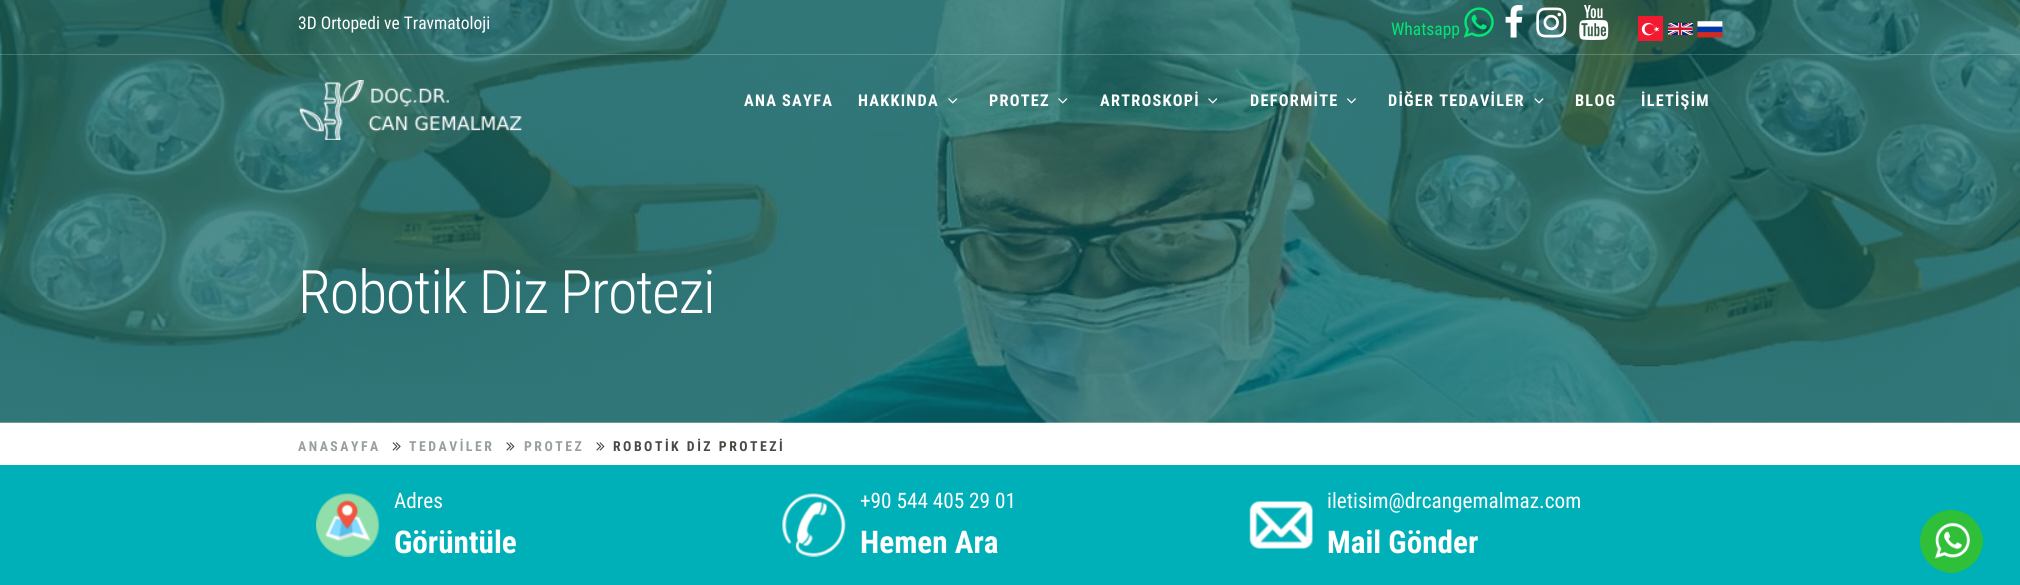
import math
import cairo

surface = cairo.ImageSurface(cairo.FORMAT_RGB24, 2020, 585)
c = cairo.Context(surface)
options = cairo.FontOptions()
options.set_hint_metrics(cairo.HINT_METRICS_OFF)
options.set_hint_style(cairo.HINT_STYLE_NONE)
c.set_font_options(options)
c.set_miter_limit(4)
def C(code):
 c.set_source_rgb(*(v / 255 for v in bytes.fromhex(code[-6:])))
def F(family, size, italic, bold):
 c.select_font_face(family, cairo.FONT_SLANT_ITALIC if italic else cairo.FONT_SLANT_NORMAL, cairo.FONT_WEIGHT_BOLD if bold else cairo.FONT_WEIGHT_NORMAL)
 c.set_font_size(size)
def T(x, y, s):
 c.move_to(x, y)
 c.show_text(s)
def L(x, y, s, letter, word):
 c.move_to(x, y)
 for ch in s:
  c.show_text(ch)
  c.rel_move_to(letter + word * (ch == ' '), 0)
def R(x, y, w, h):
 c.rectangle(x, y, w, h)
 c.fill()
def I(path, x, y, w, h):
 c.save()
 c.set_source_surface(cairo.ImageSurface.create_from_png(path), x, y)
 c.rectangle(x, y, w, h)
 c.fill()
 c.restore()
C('ffffff')
c.paint()
I('14.png',0,0,2020,423)
c.set_source_rgba(1,1,1,0.2)
R(0,54,2020,1)
F('Roboto Condensed',17.5,0,0)
C('ffffff')
T(298,29,'3D Ortopedi ve Travmatoloji')
C('01e675')
T(1391,35,'Whatsapp')
I('1.png',1463,7,31,31)
I('2.png',1505,5,18,33)
I('3.png',1536,7,31,31)
I('4.png',1579,5,30,35)
I('5.png',1638,16,25,25)
I('6.png',1668,23,25,12)
I('7.png',1697,21,26,17)
I('8.png',298,80,224,60)
F('Roboto Condensed',16.25,0,1)
C('ffffff')
L(744,106,'ANA SAYFA',1.25,0)
L(858,106,'HAKKINDA',1.25,0)
I('9.png',948,98,10,6)
L(989,106,'PROTEZ',1.25,0)
I('10.png',1058,98,10,6)
L(1100,106,'ARTROSKOPİ',1.25,0)
I('11.png',1208,98,10,6)
L(1250,106,'DEFORMİTE',1.25,0)
I('12.png',1347,98,9,6)
L(1388,106,'DİĞER TEDAVİLER',1.25,0)
I('13.png',1534,98,10,6)
L(1575,106,'BLOG',1.25,0)
L(1641,106,'İLETİŞİM',1.25,0)
F('Roboto Condensed Light',60,0,0)
L(298,313,'Robotik Diz Protezi',-1.25,0)
F('Roboto Condensed',13.75,0,1)
C('989f9f')
L(298,451,'ANASAYFA',2.5,0)
I('15.png',392,442,9,9)
L(409,451,'TEDAVİLER',2.5,0)
I('16.png',506,442,9,9)
L(524,451,'PROTEZ',2.5,0)
I('16.png',596,442,9,9)
C('4c4845')
L(613,451,'ROBOTİK DİZ PROTEZİ',2.5,0)
C('00b0b8')
R(0,465,2020,120)
I('17.png',316,493,64,64)
F('Roboto Condensed',21.25,0,0)
C('ffffff')
T(394,508,'Adres')
F('Roboto Condensed',31.25,0,1)
T(394,553,'Görüntüle')
I('18.png',782,493,64,64)
F('Roboto Condensed',21.25,0,0)
T(860,508,'+90 544 405 29 01')
F('Roboto Condensed',31.25,0,1)
T(860,553,'Hemen Ara')
I('19.png',1249,501,64,48)
F('Roboto Condensed',21.25,0,0)
T(1327,508,'iletisim@drcangemalmaz.com')
F('Roboto Condensed',31.25,0,1)
T(1327,553,'Mail Gönder')
I('20.png',1920,510,63,63)
surface.write_to_png('o.png')
